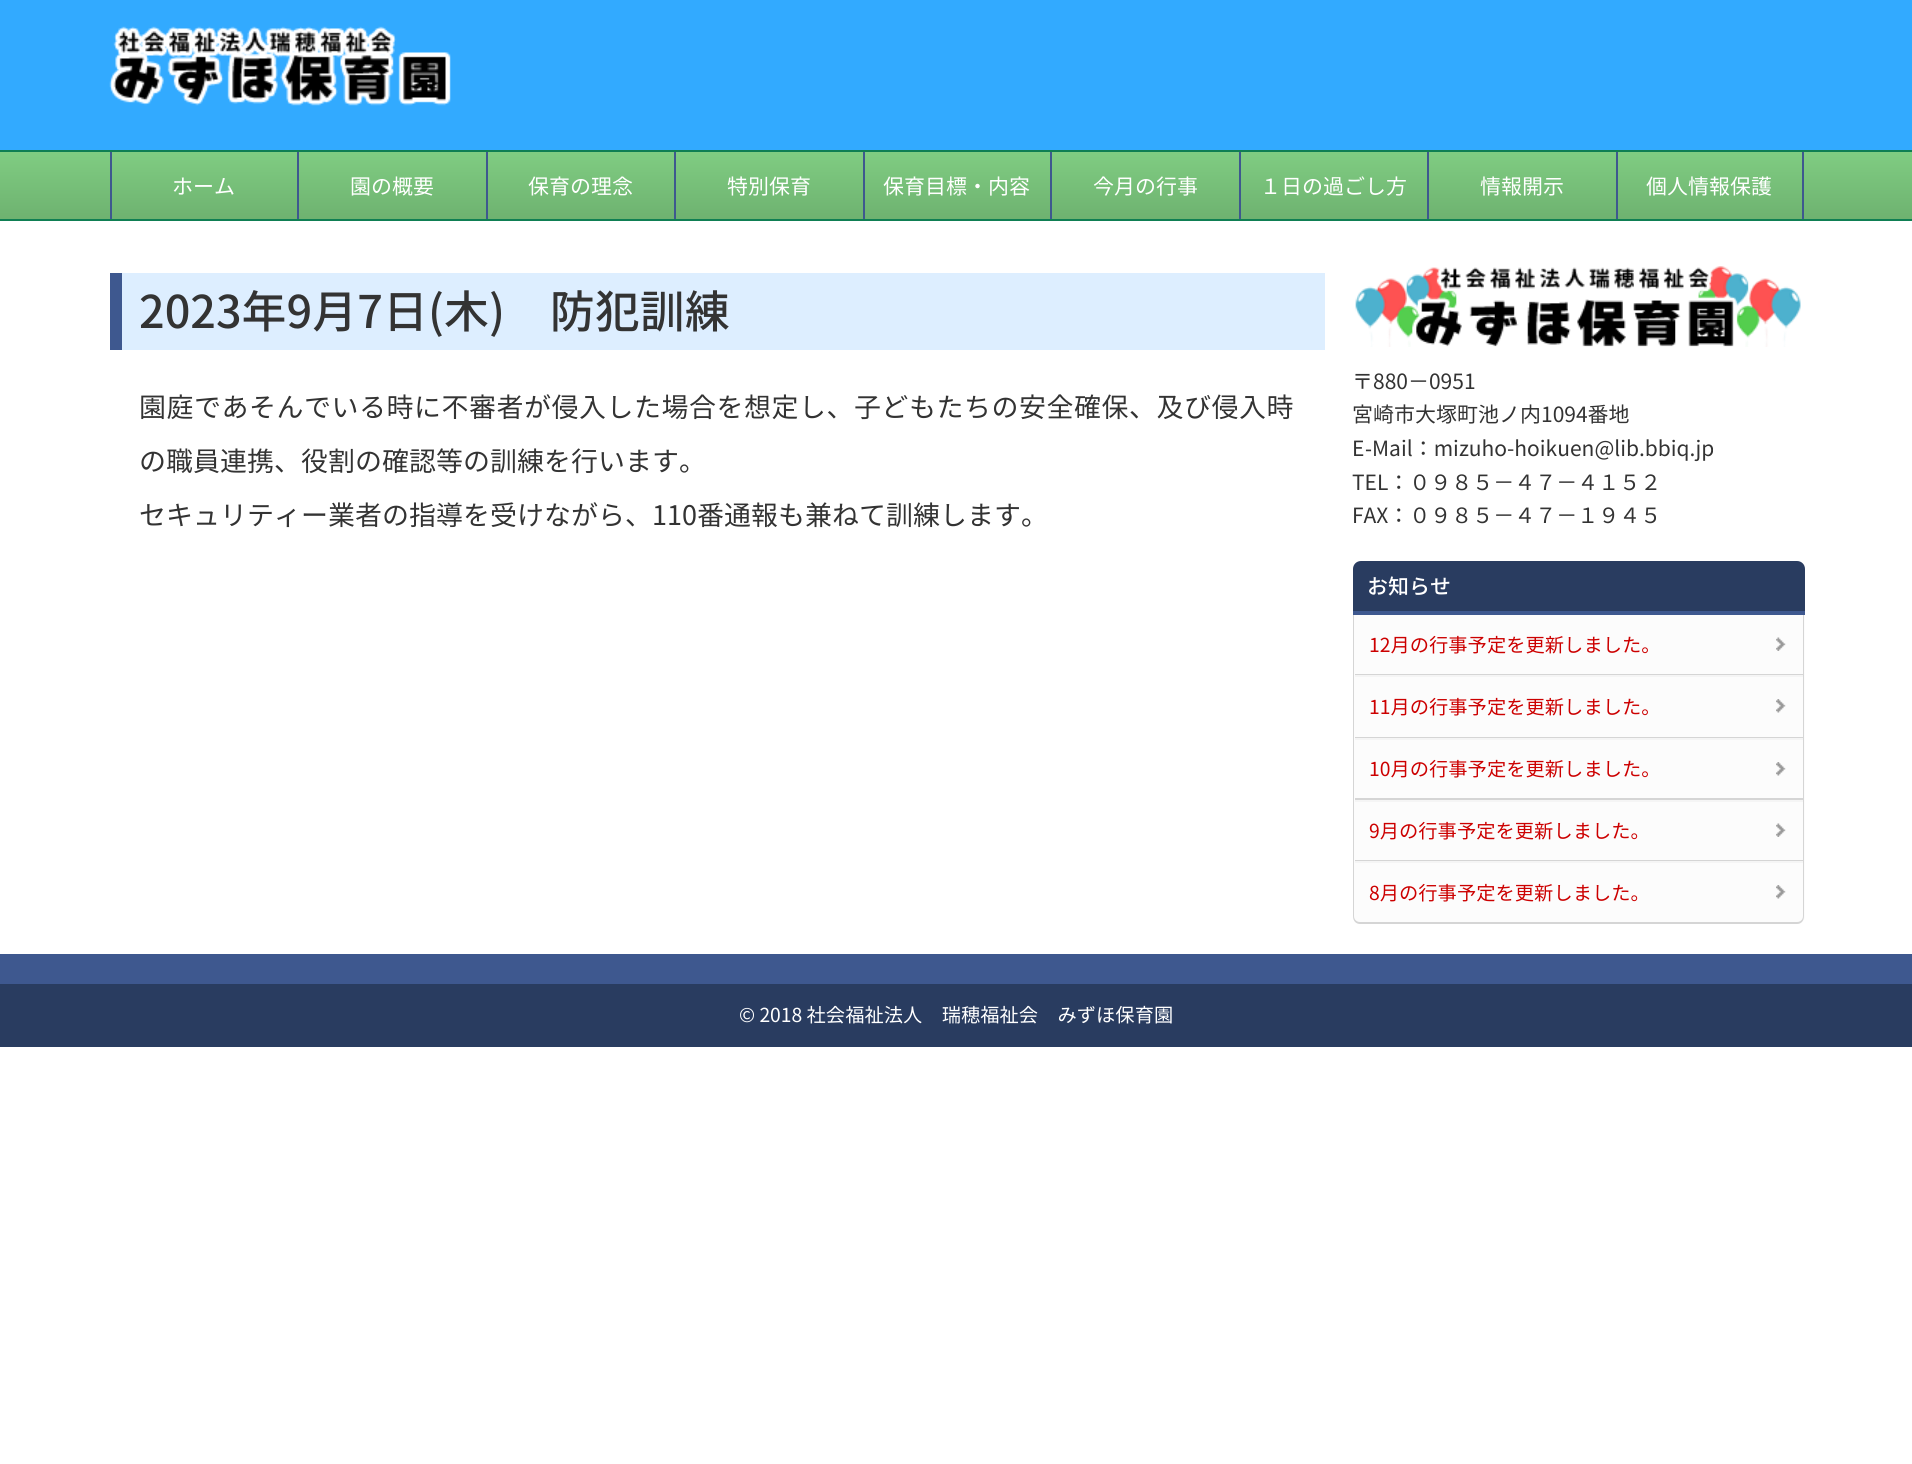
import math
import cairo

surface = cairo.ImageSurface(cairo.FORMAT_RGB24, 1912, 1464)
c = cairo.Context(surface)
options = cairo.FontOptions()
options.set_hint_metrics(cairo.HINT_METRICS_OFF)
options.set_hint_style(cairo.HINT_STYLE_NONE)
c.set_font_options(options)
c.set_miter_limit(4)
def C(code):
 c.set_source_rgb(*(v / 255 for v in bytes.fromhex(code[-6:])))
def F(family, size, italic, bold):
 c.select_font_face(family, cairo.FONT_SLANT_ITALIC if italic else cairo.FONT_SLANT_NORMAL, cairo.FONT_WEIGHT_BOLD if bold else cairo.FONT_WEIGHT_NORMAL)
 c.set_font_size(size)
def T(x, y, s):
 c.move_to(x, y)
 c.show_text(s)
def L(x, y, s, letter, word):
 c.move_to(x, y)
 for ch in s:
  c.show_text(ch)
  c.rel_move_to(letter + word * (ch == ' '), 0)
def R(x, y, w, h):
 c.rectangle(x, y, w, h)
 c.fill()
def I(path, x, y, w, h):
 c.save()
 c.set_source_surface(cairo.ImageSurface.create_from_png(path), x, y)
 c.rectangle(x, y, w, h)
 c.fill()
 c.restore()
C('ffffff')
c.paint()
C('32aaff')
R(0,0,1912,150)
I('1.png',109,26,342,80)
gradient = cairo.LinearGradient(956,151,956,219)
gradient.add_color_stop_rgba(0,0.502,0.804,0.51,1)
gradient.add_color_stop_rgba(1,0.431,0.698,0.439,1)
c.set_source(gradient)
R(0,152,1912,67)
C('0f7f53')
R(0,150,1912,2)
R(0,219,1912,2)
C('3e588f')
R(110,152,2,67)
F('Noto Sans JP',21,0,0)
C('ffffff')
T(172,194,'ホーム')
C('3e588f')
R(297,152,2,67)
C('ffffff')
T(350,194,'園の概要')
C('3e588f')
R(486,152,2,67)
C('ffffff')
T(528,194,'保育の理念')
C('3e588f')
R(674,152,2,67)
C('ffffff')
T(727,194,'特別保育')
C('3e588f')
R(863,152,2,67)
C('ffffff')
T(883,194,'保育目標・内容')
C('3e588f')
R(1050,152,2,67)
C('ffffff')
T(1093,194,'今月の行事')
C('3e588f')
R(1239,152,2,67)
C('ffffff')
T(1260,194,'１日の過ごし方')
C('3e588f')
R(1427,152,2,67)
C('ffffff')
T(1480,194,'情報開示')
C('3e588f')
R(1802,152,2,67)
R(1616,152,2,67)
C('ffffff')
T(1646,194,'個人情報保護')
C('ddeeff')
R(122,273,1203,77)
C('3e588f')
R(110,273,12,77)
F('Noto Sans JP Medium',45,0,0)
C('333333')
T(139,328,'2023年9月7日(木)　防犯訓練')
F('Noto Sans JP',27,0,0)
L(139,417,'園庭であそんでいる時に不審者が侵入した場合を想定し、子どもたちの安全確保、及び侵入時',.5,0)
T(139,471,'の職員連携、役割の確認等の訓練を行います。')
T(139,525,'セキュリティー業者の指導を受けながら、110番通報も兼ねて訓練します。')
I('2.png',1355,266,446,81)
F('Noto Sans JP',21,0,0)
T(1352,389,'〒880−0951')
T(1352,422,'宮崎市大塚町池ノ内1094番地')
T(1352,456,'E')
F('Liberation Sans',21,0,0)
T(1365,456,'‐')
F('Noto Sans JP',21,0,0)
T(1372,456,'Mail：mizuho-hoikuen@lib.bbiq.jp')
T(1352,490,'TEL：０９８５−４７−４１５２')
T(1352,523,'FAX：０９８５−４７−１９４５')
C('293c60')
c.new_path()
c.move_to(1361,561)
c.line_to(1797,561)
c.curve_to(1801.5,561,1805,564.5,1805,569)
c.line_to(1805,615)
c.line_to(1353,615)
c.line_to(1353,569)
c.curve_to(1353,564.5,1356.5,561,1361,561)
c.close_path()
c.fill()
C('3e588f')
R(1353,611,452,4)
F('Noto Sans JP Medium',21,0,0)
C('ffffff')
T(1367,594,'お知らせ')
C('fcfcfc')
c.new_path()
c.move_to(1353,615)
c.line_to(1805,615)
c.line_to(1805,916)
c.curve_to(1805,920.5,1801.5,924,1797,924)
c.line_to(1361,924)
c.curve_to(1356.5,924,1353,920.5,1353,916)
c.close_path()
c.fill()
C('d5d5d5')
c.set_fill_rule(cairo.FILL_RULE_EVEN_ODD)
c.new_path()
c.move_to(1353,615)
c.line_to(1804,615)
c.line_to(1804,916)
c.curve_to(1804,921,1801,924,1797,924)
c.line_to(1360,924)
c.curve_to(1356,924,1353,921,1353,916)
c.close_path()
c.move_to(1354,615)
c.line_to(1803,615)
c.line_to(1803,916)
c.curve_to(1803,920,1800,922,1797,922)
c.line_to(1360,922)
c.curve_to(1357,922,1354,920,1354,916)
c.close_path()
c.fill()
I('3.png',1776,637,10,14)
F('Noto Sans JP',19.3,0,0)
C('cc0000')
T(1369,652,'12月の行事予定を更新しました。')
C('d5d5d5')
R(1355,674,448,1)
I('4.png',1776,699,10,14)
C('f5f5f5')
R(1355,675,448,2)
C('cc0000')
T(1369,714,'11月の行事予定を更新しました。')
C('d5d5d5')
R(1355,737,448,1)
I('4.png',1776,762,10,14)
C('f5f5f5')
R(1355,738,448,2)
C('cc0000')
T(1369,776,'10月の行事予定を更新しました。')
C('d5d5d5')
R(1355,798,448,2)
I('3.png',1776,823,10,14)
C('f5f5f5')
R(1355,800,448,2)
C('cc0000')
T(1369,838,'9月の行事予定を更新しました。')
C('d5d5d5')
R(1355,860,448,1)
I('4.png',1776,885,10,14)
C('f5f5f5')
R(1355,861,448,2)
C('cc0000')
T(1369,900,'8月の行事予定を更新しました。')
C('3e588f')
R(0,954,1912,30)
C('293c60')
R(0,984,1912,63)
C('ffffff')
T(739,1022,'© 2018 社会福祉法人　瑞穂福祉会　みずほ保育園')
surface.write_to_png('o.png')
